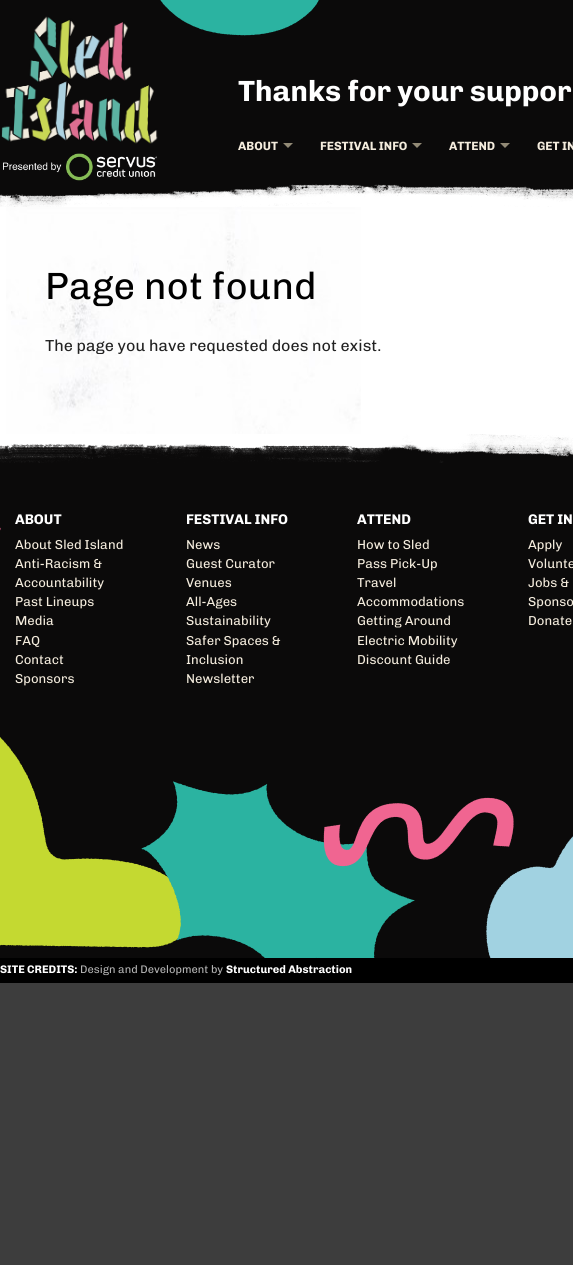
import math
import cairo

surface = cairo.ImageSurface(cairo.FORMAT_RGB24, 573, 1265)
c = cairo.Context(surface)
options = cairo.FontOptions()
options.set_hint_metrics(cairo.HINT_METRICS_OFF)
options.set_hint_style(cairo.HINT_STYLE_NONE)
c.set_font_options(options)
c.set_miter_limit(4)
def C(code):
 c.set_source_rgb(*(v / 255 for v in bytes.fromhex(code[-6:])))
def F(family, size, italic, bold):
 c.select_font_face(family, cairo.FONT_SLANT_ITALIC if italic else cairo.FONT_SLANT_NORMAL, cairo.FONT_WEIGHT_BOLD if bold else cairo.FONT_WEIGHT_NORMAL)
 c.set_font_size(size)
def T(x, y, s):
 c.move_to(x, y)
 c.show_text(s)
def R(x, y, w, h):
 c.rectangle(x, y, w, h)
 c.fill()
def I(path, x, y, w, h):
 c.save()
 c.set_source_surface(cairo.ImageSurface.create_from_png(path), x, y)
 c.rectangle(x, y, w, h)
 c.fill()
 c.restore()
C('3d3d3d')
c.paint()
C('0b0a0a')
R(0,0,573,958)
I('1.png',160,0,159,36)
I('2.png',1,16,157,128)
I('3.png',3,153,154,28)
F('Chivo',29.25,0,1)
C('ffffff')
T(238,101,'Thanks for your suppor')
C('928a76')
c.set_fill_rule(cairo.FILL_RULE_EVEN_ODD)
c.new_path()
c.move_to(283,143)
c.line_to(288,148)
c.line_to(293,143)
c.close_path()
c.fill()
F('Chivo',12,0,1)
C('f4ecdd')
T(238,150,'ABOUT')
C('928a76')
c.new_path()
c.move_to(412,143)
c.line_to(417,148)
c.line_to(422,143)
c.close_path()
c.fill()
C('f4ecdd')
T(320,150,'FESTIVAL INFO')
C('928a76')
c.new_path()
c.move_to(500,143)
c.line_to(505,148)
c.line_to(510,143)
c.close_path()
c.fill()
C('f4ecdd')
T(449,150,'ATTEND')
T(537,150,'GET IN')
I('4.png',0,184,573,23)
C('ffffff')
R(0,207,573,227)
I('5.png',6,207,355,227)
F('Chivo',38,0,0)
C('000000')
T(45,299,'Page not found')
F('Chivo',16,0,0)
C('222222')
T(45,351,'The page you have requested does not exist.')
I('6.png',0,434,573,29)
F('Chivo',14,0,1)
C('ffffff')
T(15,524,'ABOUT')
F('Chivo',13,0,0)
C('f4ecdd')
T(15,549,'About Sled Island')
T(15,568,'Anti-Racism &')
T(15,587,'Accountability')
T(15,606,'Past Lineups')
T(15,625,'Media')
T(15,645,'FAQ')
T(15,664,'Contact')
T(15,683,'Sponsors')
F('Chivo',14,0,1)
C('ffffff')
T(186,524,'FESTIVAL INFO')
F('Chivo',13,0,0)
C('f4ecdd')
T(186,549,'News')
T(186,568,'Guest Curator')
T(186,587,'Venues')
T(186,606,'All-Ages')
T(186,625,'Sustainability')
T(186,645,'Safer Spaces &')
T(186,664,'Inclusion')
T(186,683,'Newsletter')
F('Chivo',14,0,1)
C('ffffff')
T(357,524,'ATTEND')
F('Chivo',13,0,0)
C('f4ecdd')
T(357,549,'How to Sled')
T(357,568,'Pass Pick-Up')
T(357,587,'Travel')
T(357,606,'Accommodations')
T(357,625,'Getting Around')
T(357,645,'Electric Mobility')
T(357,664,'Discount Guide')
F('Chivo',14,0,1)
C('ffffff')
T(528,524,'GET IN')
F('Chivo',13,0,0)
C('f4ecdd')
T(528,549,'Apply')
T(528,568,'Volunte')
T(528,587,'Jobs &')
T(528,606,'Sponso')
T(528,625,'Donate')
I('7.png',0,737,181,211)
I('8.png',141,781,274,177)
I('9.png',323,797,191,70)
I('10.png',486,836,87,122)
C('000000')
R(0,958,573,25)
F('Chivo',11,0,1)
C('ffffff')
T(0,973,'SITE CREDITS:')
F('Chivo',11,0,0)
C('b3b3b3')
T(80,973,'Design and Development by')
F('Chivo',11,0,1)
C('ffffff')
T(226,973,'Structured Abstraction')
I('11.png',0,527,1,4)
surface.write_to_png('o.png')
